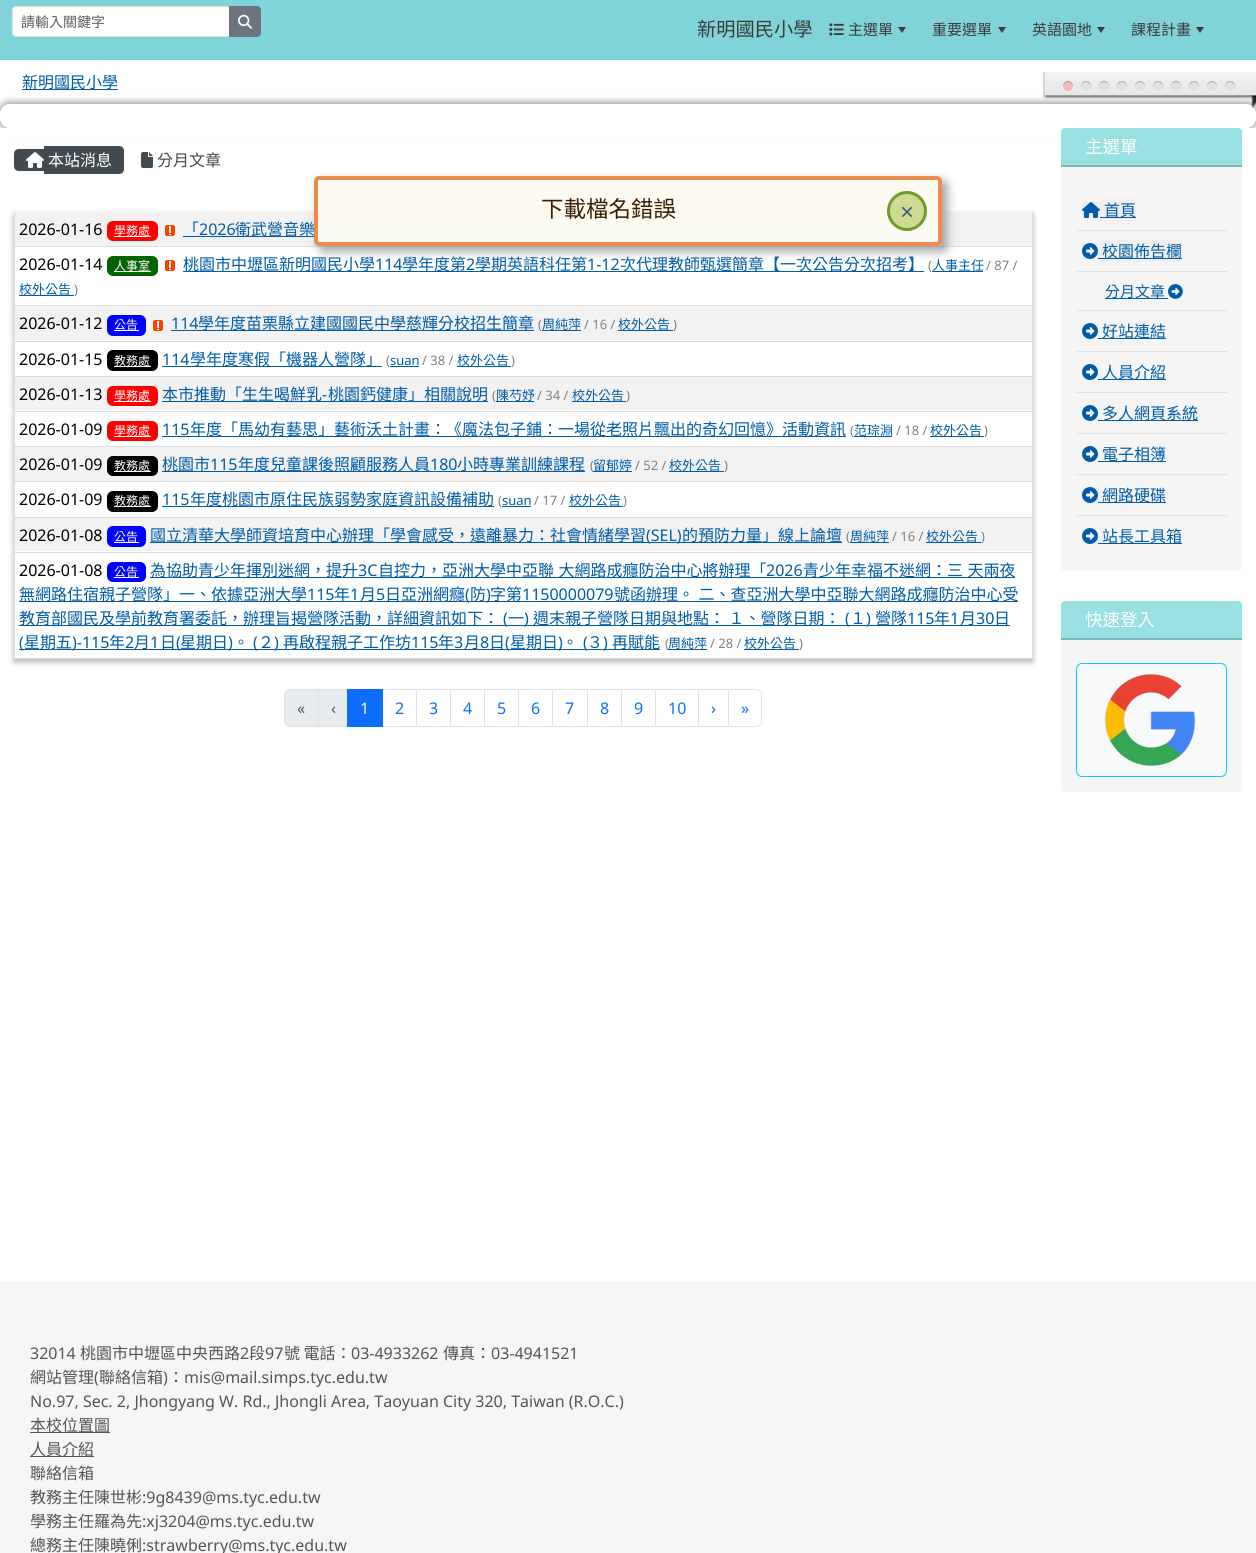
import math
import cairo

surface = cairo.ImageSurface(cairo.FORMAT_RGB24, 1256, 1553)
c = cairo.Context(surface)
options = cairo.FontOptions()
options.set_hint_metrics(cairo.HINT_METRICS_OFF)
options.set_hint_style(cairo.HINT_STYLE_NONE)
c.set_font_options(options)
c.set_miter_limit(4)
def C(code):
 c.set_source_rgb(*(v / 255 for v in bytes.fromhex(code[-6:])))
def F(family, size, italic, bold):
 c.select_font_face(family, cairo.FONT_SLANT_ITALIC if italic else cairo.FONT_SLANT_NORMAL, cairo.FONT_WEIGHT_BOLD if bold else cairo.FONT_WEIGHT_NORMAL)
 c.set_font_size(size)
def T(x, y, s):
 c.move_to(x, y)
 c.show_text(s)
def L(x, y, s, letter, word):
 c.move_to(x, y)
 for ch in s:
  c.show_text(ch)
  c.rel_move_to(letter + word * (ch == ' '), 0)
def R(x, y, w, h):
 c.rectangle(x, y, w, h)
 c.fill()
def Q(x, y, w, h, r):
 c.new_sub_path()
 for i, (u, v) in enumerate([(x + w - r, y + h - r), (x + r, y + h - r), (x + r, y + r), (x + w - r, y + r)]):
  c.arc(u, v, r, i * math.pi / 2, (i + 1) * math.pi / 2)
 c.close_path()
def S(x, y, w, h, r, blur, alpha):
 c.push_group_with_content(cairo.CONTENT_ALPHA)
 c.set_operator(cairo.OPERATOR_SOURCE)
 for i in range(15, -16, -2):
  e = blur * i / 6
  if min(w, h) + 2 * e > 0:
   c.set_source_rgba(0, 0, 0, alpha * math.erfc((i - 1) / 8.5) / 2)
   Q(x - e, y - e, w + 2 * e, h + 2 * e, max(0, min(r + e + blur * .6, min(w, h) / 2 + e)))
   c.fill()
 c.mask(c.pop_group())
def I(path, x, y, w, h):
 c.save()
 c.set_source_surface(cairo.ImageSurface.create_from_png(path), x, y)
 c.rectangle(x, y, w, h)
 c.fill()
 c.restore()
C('ffffff')
c.paint()
C('80d3d6')
R(0,0,1256,60)
C('ffffff')
c.new_path()
c.move_to(16,6.5)
c.line_to(229.5,6.5)
c.line_to(229.5,36.5)
c.line_to(16,36.5)
c.curve_to(14,36.5,12.5,35,12.5,33)
c.line_to(12.5,10)
c.curve_to(12.5,8,14,6.5,16,6.5)
c.close_path()
c.fill_preserve()
C('dee2e6')
c.set_line_width(1)
c.stroke()
F('Noto Sans CJK TC',14,0,0)
C('595c5f')
T(21,27,'請輸入關鍵字')
C('6c757d')
c.new_path()
c.move_to(229.5,6.5)
c.line_to(257,6.5)
c.curve_to(259,6.5,260.5,8,260.5,10)
c.line_to(260.5,33)
c.curve_to(260.5,35,259,36.5,257,36.5)
c.line_to(229.5,36.5)
c.close_path()
c.fill_preserve()
c.stroke()
I('1.png',238,14,14,15)
F('Noto Sans CJK TC',19.25,0,0)
C('3b3b3b')
T(697,36,'新明國民小學')
I('2.png',829,23,15,13)
F('Noto Sans CJK TC',15,0,0)
T(848,35,'主選單')
c.new_path()
c.move_to(898,27)
c.line_to(906,27)
c.line_to(902,33)
c.close_path()
c.fill()
T(932,35,'重要選單')
c.new_path()
c.move_to(998,27)
c.line_to(1006,27)
c.line_to(1002,33)
c.close_path()
c.fill()
T(1032,35,'英語園地')
c.new_path()
c.move_to(1097,27)
c.line_to(1105,27)
c.line_to(1101,33)
c.close_path()
c.fill()
T(1131,35,'課程計畫')
c.new_path()
c.move_to(1196,27)
c.line_to(1204,27)
c.line_to(1200,33)
c.close_path()
c.fill()
c.save()
c.set_fill_rule(cairo.FILL_RULE_EVEN_ODD)
c.new_path()
c.move_to(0,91)
c.line_to(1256,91)
c.line_to(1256,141)
c.line_to(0,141)
c.close_path()
c.move_to(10,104)
c.line_to(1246,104)
c.curve_to(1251.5,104,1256,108.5,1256,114)
c.line_to(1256,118)
c.curve_to(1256,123.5,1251.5,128,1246,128)
c.line_to(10,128)
c.curve_to(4.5,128,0,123.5,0,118)
c.line_to(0,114)
c.curve_to(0,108.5,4.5,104,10,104)
c.close_path()
c.clip()
C('323232')
S(-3,101,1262,30,13,3,.4)
c.restore()
I('3.png',1043,72,213,36)
I('4.png',1063,81,10,10)
I('5.png',1081,81,10,10)
I('5.png',1099,81,10,10)
I('5.png',1117,81,10,10)
I('5.png',1135,81,10,10)
I('5.png',1153,81,10,10)
I('5.png',1171,81,10,10)
I('5.png',1189,81,10,10)
I('5.png',1207,81,10,10)
I('5.png',1225,81,10,10)
C('005ca8')
R(22,89,96,1)
F('Noto Sans CJK TC',16,0,0)
T(22,88,'新明國民小學')
C('ffffff')
R(0,128,1256,9)
C('404a50')
c.new_path()
c.move_to(19,149)
c.line_to(44,149)
c.line_to(44,171)
c.line_to(19,171)
c.curve_to(16,171,14,169,14,166)
c.line_to(14,154)
c.curve_to(14,151,16,149,19,149)
c.close_path()
c.fill()
c.new_path()
c.move_to(44,146)
c.line_to(119,146)
c.curve_to(122,146,124,148,124,151)
c.line_to(124,169)
c.curve_to(124,172,122,174,119,174)
c.line_to(44,174)
c.close_path()
c.fill()
I('6.png',26,152,18,16)
C('ffffff')
T(48,166,'本站消息')
I('7.png',141,152,12,16)
C('404a50')
T(157,166,'分月文章')
c.save()
c.set_fill_rule(cairo.FILL_RULE_EVEN_ODD)
c.new_path()
c.move_to(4,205)
c.line_to(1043,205)
c.line_to(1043,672)
c.line_to(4,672)
c.close_path()
c.move_to(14,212)
c.line_to(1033,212)
c.line_to(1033,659)
c.line_to(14,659)
c.close_path()
c.clip()
C('000000')
S(14,215,1019,447,0,3,.3)
c.restore()
C('f2f2f2')
R(15,212,1017,34)
C('dddddd')
R(1032,212,1,447)
R(14,658,1019,1)
R(14,552,1,107)
R(14,552,1019,1)
R(14,517,1,36)
R(14,517,1019,1)
R(14,481,1,37)
R(14,481,1019,1)
R(14,446,1,36)
R(14,446,1019,1)
R(14,411,1,36)
R(14,411,1019,1)
R(14,376,1,36)
R(14,376,1019,1)
R(14,341,1,36)
R(14,341,1019,1)
R(14,305,1,37)
R(14,305,1019,1)
R(14,246,1,60)
R(14,246,1019,1)
R(14,212,1,35)
F('Noto Sans',16,0,0)
C('000000')
T(19,235,'2026-01-16')
C('ff0000')
Q(107,221,51,20,6)
c.fill()
F('Noto Sans CJK TC',12,0,0)
C('ffffff')
T(114,235,'學務處')
R(114,236,37,1)
I('8.png',165,225,10,11)
F('Noto Sans CJK TC',16,0,0)
C('005ca8')
T(183,235,'「')
F('Noto Sans',16,0,0)
T(199,235,'2026')
R(183,236,131,1)
F('Noto Sans CJK TC',16,0,0)
T(235,235,'衛武營音樂')
F('Noto Sans',16,0,0)
C('000000')
T(19,270,'2026-01-14')
C('006400')
Q(107,256,51,20,6)
c.fill()
F('Noto Sans CJK TC',12,0,0)
C('ffffff')
T(114,270,'人事室')
R(114,271,37,1)
I('9.png',165,260,10,11)
C('005ca8')
R(183,271,741,1)
F('Noto Sans CJK TC',16,0,0)
T(183,270,'桃園市中壢區新明國民小學')
F('Noto Sans',16,0,0)
T(375,270,'114')
F('Noto Sans CJK TC',16,0,0)
T(402,270,'學年度第')
F('Noto Sans',16,0,0)
T(466,270,'2')
F('Noto Sans CJK TC',16,0,0)
T(475,270,'學期英語科任第')
F('Noto Sans',16,0,0)
T(587,270,'1-12')
F('Noto Sans CJK TC',16,0,0)
T(620,270,'次代理教師甄選簡章【一次公告分次招考】')
F('Noto Sans',13,0,0)
C('808080')
T(928,270,'(')
C('005ca8')
R(932,271,51,1)
F('Noto Sans CJK TC',13,0,0)
T(932,270,'人事主任')
F('Noto Sans',13,0,0)
C('808080')
T(986,270,'/ 87 /')
C('005ca8')
R(19,295,55,1)
F('Noto Sans CJK TC',13,0,0)
T(19,294,'校外公告')
F('Noto Sans',13,0,0)
C('808080')
T(74,294,')')
C('f2f2f2')
R(15,306,1017,34)
F('Noto Sans',16,0,0)
C('000000')
T(19,329,'2026-01-12')
C('0000ff')
Q(107,315,39,21,6)
c.fill()
C('ffffff')
R(114,330,25,1)
F('Noto Sans CJK TC',12,0,0)
T(114,329,'公告')
I('8.png',153,320,10,11)
F('Noto Sans',16,0,0)
C('005ca8')
T(171,329,'114')
R(171,330,363,1)
F('Noto Sans CJK TC',16,0,0)
T(198,329,'學年度苗栗縣立建國國民中學慈輝分校招生簡章')
F('Noto Sans',13,0,0)
C('808080')
T(538,329,'(')
C('005ca8')
R(542,330,39,1)
F('Noto Sans CJK TC',13,0,0)
T(542,329,'周純萍')
F('Noto Sans',13,0,0)
C('808080')
T(584,329,'/ 16 /')
C('005ca8')
R(618,330,55,1)
F('Noto Sans CJK TC',13,0,0)
T(618,329,'校外公告')
F('Noto Sans',13,0,0)
C('808080')
T(673,329,')')
F('Noto Sans',16,0,0)
C('000000')
T(19,365,'2026-01-15')
Q(107,350,51,21,6)
c.fill()
F('Noto Sans CJK TC',12,0,0)
C('ffffff')
T(114,365,'教務處')
R(114,366,37,1)
F('Noto Sans',16,0,0)
C('005ca8')
T(162,365,'114')
R(162,366,220,1)
F('Noto Sans CJK TC',16,0,0)
T(190,365,'學年度寒假「機器人營隊」')
F('Noto Sans',13,0,0)
C('808080')
T(386,365,'(')
C('005ca8')
T(390,365,'suan')
R(390,366,29,1)
C('808080')
T(422,365,'/ 38 /')
C('005ca8')
R(457,366,54,1)
F('Noto Sans CJK TC',13,0,0)
T(457,365,'校外公告')
F('Noto Sans',13,0,0)
C('808080')
T(511,365,')')
C('f2f2f2')
R(15,377,1017,33)
F('Noto Sans',16,0,0)
C('000000')
T(19,400,'2026-01-13')
C('ff0000')
Q(107,386,51,20,6)
c.fill()
F('Noto Sans CJK TC',12,0,0)
C('ffffff')
T(114,400,'學務處')
R(114,401,37,1)
C('005ca8')
R(162,401,326,1)
F('Noto Sans CJK TC',16,0,0)
T(162,400,'本市推動「生生喝鮮乳')
F('Noto Sans',16,0,0)
T(322,400,'-')
F('Noto Sans CJK TC',16,0,0)
T(328,400,'桃園鈣健康」相關說明')
F('Noto Sans',13,0,0)
C('808080')
T(492,400,'(')
C('005ca8')
R(496,401,38,1)
F('Noto Sans CJK TC',13,0,0)
T(496,400,'陳芍妤')
F('Noto Sans',13,0,0)
C('808080')
T(537,400,'/ 34 /')
C('005ca8')
R(572,401,54,1)
F('Noto Sans CJK TC',13,0,0)
T(572,400,'校外公告')
F('Noto Sans',13,0,0)
C('808080')
T(626,400,')')
F('Noto Sans',16,0,0)
C('000000')
T(19,435,'2026-01-09')
C('ff0000')
Q(107,421,51,20,6)
c.fill()
F('Noto Sans CJK TC',12,0,0)
C('ffffff')
T(114,435,'學務處')
R(114,436,37,1)
F('Noto Sans',16,0,0)
C('005ca8')
T(162,435,'115')
R(162,436,684,1)
F('Noto Sans CJK TC',16,0,0)
T(190,435,'年度「馬幼有藝思」藝術沃土計畫：《魔法包子鋪：一場從老照片飄出的奇幻回憶》活動資訊')
F('Noto Sans',13,0,0)
C('808080')
T(850,435,'(')
C('005ca8')
R(854,436,38,1)
F('Noto Sans CJK TC',13,0,0)
T(854,435,'范琮淵')
F('Noto Sans',13,0,0)
C('808080')
T(896,435,'/ 18 /')
C('005ca8')
R(930,436,54,1)
F('Noto Sans CJK TC',13,0,0)
T(930,435,'校外公告')
F('Noto Sans',13,0,0)
C('808080')
T(984,435,')')
C('f2f2f2')
R(15,447,1017,34)
F('Noto Sans',16,0,0)
C('000000')
T(19,470,'2026-01-09')
Q(107,456,51,20,6)
c.fill()
F('Noto Sans CJK TC',12,0,0)
C('ffffff')
T(114,470,'教務處')
R(114,471,37,1)
C('005ca8')
R(162,471,423,1)
F('Noto Sans CJK TC',16,0,0)
T(162,470,'桃園市')
F('Noto Sans',16,0,0)
T(210,470,'115')
F('Noto Sans CJK TC',16,0,0)
T(238,470,'年度兒童課後照顧服務人員')
F('Noto Sans',16,0,0)
T(430,470,'180')
F('Noto Sans CJK TC',16,0,0)
T(457,470,'小時專業訓練課程')
F('Noto Sans',13,0,0)
C('808080')
T(590,470,'(')
C('005ca8')
R(593,471,39,1)
F('Noto Sans CJK TC',13,0,0)
T(593,470,'留郁婷')
F('Noto Sans',13,0,0)
C('808080')
T(635,470,'/ 52 /')
C('005ca8')
R(669,471,55,1)
F('Noto Sans CJK TC',13,0,0)
T(669,470,'校外公告')
F('Noto Sans',13,0,0)
C('808080')
T(724,470,')')
F('Noto Sans',16,0,0)
C('000000')
T(19,505,'2026-01-09')
Q(107,491,51,21,6)
c.fill()
F('Noto Sans CJK TC',12,0,0)
C('ffffff')
T(114,505,'教務處')
R(114,506,37,1)
F('Noto Sans',16,0,0)
C('005ca8')
T(162,505,'115')
R(162,506,332,1)
F('Noto Sans CJK TC',16,0,0)
T(190,505,'年度桃園市原住民族弱勢家庭資訊設備補助')
F('Noto Sans',13,0,0)
C('808080')
T(498,505,'(')
C('005ca8')
T(502,505,'suan')
R(502,506,29,1)
C('808080')
T(534,505,'/ 17 /')
C('005ca8')
R(569,506,54,1)
F('Noto Sans CJK TC',13,0,0)
T(569,505,'校外公告')
F('Noto Sans',13,0,0)
C('808080')
T(623,505,')')
C('f2f2f2')
R(15,518,1017,33)
F('Noto Sans',16,0,0)
C('000000')
T(19,541,'2026-01-08')
C('0000ff')
Q(107,526,39,21,6)
c.fill()
C('ffffff')
R(114,542,25,1)
F('Noto Sans CJK TC',12,0,0)
T(114,541,'公告')
C('005ca8')
R(150,542,692,1)
F('Noto Sans CJK TC',16,0,0)
T(150,541,'國立清華大學師資培育中心辦理「學會感受，遠離暴力：社會情緒學習')
F('Noto Sans',16,0,0)
T(646,541,'(SEL)')
F('Noto Sans CJK TC',16,0,0)
T(682,541,'的預防力量」線上論壇')
F('Noto Sans',13,0,0)
C('808080')
T(846,541,'(')
C('005ca8')
R(850,542,39,1)
F('Noto Sans CJK TC',13,0,0)
T(850,541,'周純萍')
F('Noto Sans',13,0,0)
C('808080')
T(892,541,'/ 16 /')
C('005ca8')
R(926,542,55,1)
F('Noto Sans CJK TC',13,0,0)
T(926,541,'校外公告')
F('Noto Sans',13,0,0)
C('808080')
T(981,541,')')
F('Noto Sans',16,0,0)
C('000000')
T(19,576,'2026-01-08')
C('0000ff')
Q(107,562,39,20,6)
c.fill()
C('ffffff')
R(114,577,25,1)
F('Noto Sans CJK TC',12,0,0)
T(114,576,'公告')
C('005ca8')
R(150,577,865,1)
F('Noto Sans CJK TC',16,0,0)
T(150,576,'為協助青少年揮別迷網，提升')
F('Noto Sans',16,0,0)
T(358,576,'3C')
F('Noto Sans CJK TC',16,0,0)
L(378,576,'自控力，亞洲大學中亞聯 大網路成癮防治中心將辦理「',0,1)
F('Noto Sans',16,0,0)
T(766,576,'2026')
F('Noto Sans CJK TC',16,0,0)
L(803,576,'青少年幸福不迷網：三 天兩夜',0,1)
R(19,601,999,1)
T(19,600,'無網路住宿親子營隊」一、依據亞洲大學')
F('Noto Sans',16,0,0)
T(307,600,'115')
F('Noto Sans CJK TC',16,0,0)
T(334,600,'年')
F('Noto Sans',16,0,0)
T(350,600,'1')
F('Noto Sans CJK TC',16,0,0)
T(360,600,'月')
F('Noto Sans',16,0,0)
T(376,600,'5')
F('Noto Sans CJK TC',16,0,0)
T(385,600,'日亞洲網癮')
F('Noto Sans',16,0,0)
T(465,600,'(')
F('Noto Sans CJK TC',16,0,0)
T(470,600,'防')
F('Noto Sans',16,0,0)
T(486,600,')')
F('Noto Sans CJK TC',16,0,0)
T(490,600,'字第')
F('Noto Sans',16,0,0)
T(522,600,'1150000079')
F('Noto Sans CJK TC',16,0,0)
L(614,600,'號函辦理。 二、查亞洲大學中亞聯大網路成癮防治中心受',0,1)
R(19,625,991,1)
T(19,624,'教育部國民及學前教育署委託，辦理旨揭營隊活動，詳細資訊如下：')
F('Noto Sans',16,0,0)
T(503,624,'(')
F('Noto Sans CJK TC',16,0,0)
T(508,624,'一')
F('Noto Sans',16,0,0)
T(524,624,')')
F('Noto Sans CJK TC',16,0,0)
T(533,624,'週末親子營隊日期與地點： １、營隊日期：')
F('Noto Sans',16,0,0)
T(845,624,'(')
F('Noto Sans CJK TC',16,0,0)
T(850,624,'１')
F('Noto Sans',16,0,0)
T(866,624,')')
F('Noto Sans CJK TC',16,0,0)
T(875,624,'營隊')
F('Noto Sans',16,0,0)
T(907,624,'115')
F('Noto Sans CJK TC',16,0,0)
T(934,624,'年')
F('Noto Sans',16,0,0)
T(950,624,'1')
F('Noto Sans CJK TC',16,0,0)
T(960,624,'月')
F('Noto Sans',16,0,0)
T(976,624,'30')
F('Noto Sans CJK TC',16,0,0)
T(994,624,'日')
R(19,649,641,1)
F('Noto Sans',16,0,0)
T(19,648,'(')
F('Noto Sans CJK TC',16,0,0)
T(24,648,'星期五')
F('Noto Sans',16,0,0)
T(72,648,')-115')
F('Noto Sans CJK TC',16,0,0)
T(109,648,'年')
F('Noto Sans',16,0,0)
T(125,648,'2')
F('Noto Sans CJK TC',16,0,0)
T(134,648,'月')
F('Noto Sans',16,0,0)
T(150,648,'1')
F('Noto Sans CJK TC',16,0,0)
T(160,648,'日')
F('Noto Sans',16,0,0)
T(176,648,'(')
F('Noto Sans CJK TC',16,0,0)
T(180,648,'星期日')
F('Noto Sans',16,0,0)
T(228,648,')')
F('Noto Sans CJK TC',16,0,0)
T(233,648,'。')
F('Noto Sans',16,0,0)
T(253,648,'(')
F('Noto Sans CJK TC',16,0,0)
T(258,648,'２')
F('Noto Sans',16,0,0)
T(274,648,')')
F('Noto Sans CJK TC',16,0,0)
T(283,648,'再啟程親子工作坊')
F('Noto Sans',16,0,0)
T(411,648,'115')
F('Noto Sans CJK TC',16,0,0)
T(438,648,'年')
F('Noto Sans',16,0,0)
T(454,648,'3')
F('Noto Sans CJK TC',16,0,0)
T(464,648,'月')
F('Noto Sans',16,0,0)
T(480,648,'8')
F('Noto Sans CJK TC',16,0,0)
T(489,648,'日')
F('Noto Sans',16,0,0)
T(505,648,'(')
F('Noto Sans CJK TC',16,0,0)
T(510,648,'星期日')
F('Noto Sans',16,0,0)
T(558,648,')')
F('Noto Sans CJK TC',16,0,0)
T(562,648,'。')
F('Noto Sans',16,0,0)
T(583,648,'(')
F('Noto Sans CJK TC',16,0,0)
T(587,648,'３')
F('Noto Sans',16,0,0)
T(603,648,')')
F('Noto Sans CJK TC',16,0,0)
T(612,648,'再賦能')
F('Noto Sans',13,0,0)
C('808080')
T(665,648,'(')
C('005ca8')
R(668,649,39,1)
F('Noto Sans CJK TC',13,0,0)
T(668,648,'周純萍')
F('Noto Sans',13,0,0)
C('808080')
T(710,648,'/ 28 /')
C('005ca8')
R(744,649,55,1)
F('Noto Sans CJK TC',13,0,0)
T(744,648,'校外公告')
F('Noto Sans',13,0,0)
C('808080')
T(799,648,')')
C('e9ecef')
c.new_path()
c.move_to(290,689.5)
c.line_to(318.5,689.5)
c.line_to(318.5,726.5)
c.line_to(290,726.5)
c.curve_to(287,726.5,284.5,724,284.5,721)
c.line_to(284.5,695)
c.curve_to(284.5,692,287,689.5,290,689.5)
c.close_path()
c.fill_preserve()
C('dee2e6')
c.stroke()
F('Noto Sans',16,0,0)
C('53575b')
T(297,714,'«')
C('e9ecef')
c.rectangle(318.5,689.5,29,37)
c.fill_preserve()
C('dee2e6')
c.stroke()
C('53575b')
T(331,714,'‹')
c.rectangle(382.5,689.5,34,37)
C('dee2e6')
c.stroke()
C('0d6efd')
R(347,689,36,38)
C('ffffff')
T(360,714,'1')
C('0d6efd')
T(395,714,'2')
c.rectangle(416.5,689.5,34,37)
C('dee2e6')
c.stroke()
C('0d6efd')
T(429,714,'3')
c.rectangle(450.5,689.5,34,37)
C('dee2e6')
c.stroke()
C('0d6efd')
T(463,714,'4')
c.rectangle(484.5,689.5,34,37)
C('dee2e6')
c.stroke()
C('0d6efd')
T(497,714,'5')
c.rectangle(518.5,689.5,34,37)
C('dee2e6')
c.stroke()
C('0d6efd')
T(531,714,'6')
c.rectangle(552.5,689.5,35,37)
C('dee2e6')
c.stroke()
C('0d6efd')
T(565,714,'7')
c.rectangle(587.5,689.5,34,37)
C('dee2e6')
c.stroke()
C('0d6efd')
T(600,714,'8')
c.rectangle(621.5,689.5,34,37)
C('dee2e6')
c.stroke()
C('0d6efd')
T(634,714,'9')
c.rectangle(655.5,689.5,43,37)
C('dee2e6')
c.stroke()
C('0d6efd')
T(668,714,'10')
c.rectangle(698.5,689.5,30,37)
C('dee2e6')
c.stroke()
C('0d6efd')
T(711,714,'›')
C('ffffff')
c.new_path()
c.move_to(728.5,689.5)
c.line_to(756,689.5)
c.curve_to(759,689.5,761.5,692,761.5,695)
c.line_to(761.5,721)
c.curve_to(761.5,724,759,726.5,756,726.5)
c.line_to(728.5,726.5)
c.close_path()
c.fill_preserve()
C('dee2e6')
c.stroke()
C('0d6efd')
T(741,714,'»')
C('f5f5f5')
Q(1061,128,181,443,4)
c.fill()
C('98e0e2')
c.new_path()
c.move_to(1065,128)
c.line_to(1238,128)
c.curve_to(1240,128,1242,130,1242,132)
c.line_to(1242,167)
c.line_to(1061,167)
c.line_to(1061,132)
c.curve_to(1061,130,1063,128,1065,128)
c.close_path()
c.fill()
C('7cb6b7')
R(1061,165,181,2)
F('Noto Sans CJK TC',17.5,0,0)
C('ffffff')
T(1085,153,'主選單')
c.new_path()
c.move_to(1076,230.5)
c.line_to(1227,230.5)
C('cfcfcf')
c.set_dash([1,1])
c.stroke()
C('efefef')
R(1082,202,18,16)
R(1100,199,36,22)
I('10.png',1082,202,18,16)
C('005ca8')
R(1100,217,36,1)
F('Noto Sans CJK TC',16,0,0)
T(1104,216,'首頁')
c.new_path()
c.move_to(1076,271.5)
c.line_to(1227,271.5)
C('cfcfcf')
c.stroke()
C('efefef')
R(1082,243,16,16)
R(1098,240,84,22)
I('11.png',1082,243,16,16)
C('005ca8')
R(1098,258,84,1)
T(1102,257,'校園佈告欄')
c.new_path()
c.move_to(1076,310.5)
c.line_to(1227,310.5)
C('cfcfcf')
c.stroke()
C('005ca8')
R(1105,298,63,1)
F('Noto Sans CJK TC',15,0,0)
T(1105,297,'分月文章')
I('12.png',1168,284,15,15)
c.new_path()
c.move_to(1076,351.5)
c.line_to(1227,351.5)
C('cfcfcf')
c.stroke()
I('13.png',1082,323,16,16)
C('005ca8')
R(1098,338,68,1)
F('Noto Sans CJK TC',16,0,0)
T(1102,337,'好站連結')
c.new_path()
c.move_to(1076,392.5)
c.line_to(1227,392.5)
C('cfcfcf')
c.stroke()
I('13.png',1082,364,16,16)
C('005ca8')
R(1098,379,68,1)
T(1102,378,'人員介紹')
c.new_path()
c.move_to(1076,433.5)
c.line_to(1227,433.5)
C('cfcfcf')
c.stroke()
I('13.png',1082,405,16,16)
C('005ca8')
R(1098,420,100,1)
T(1102,419,'多人網頁系統')
c.new_path()
c.move_to(1076,474.5)
c.line_to(1227,474.5)
C('cfcfcf')
c.stroke()
I('13.png',1082,446,16,16)
C('005ca8')
R(1098,461,68,1)
T(1102,460,'電子相簿')
c.new_path()
c.move_to(1076,515.5)
c.line_to(1227,515.5)
C('cfcfcf')
c.stroke()
I('13.png',1082,487,16,16)
C('005ca8')
R(1098,502,68,1)
T(1102,501,'網路硬碟')
I('13.png',1082,528,16,16)
R(1098,543,84,1)
T(1102,542,'站長工具箱')
C('f5f5f5')
Q(1061,601,181,191,4)
c.fill()
C('98e0e2')
c.new_path()
c.move_to(1065,601)
c.line_to(1238,601)
c.curve_to(1240,601,1242,603,1242,605)
c.line_to(1242,640)
c.line_to(1061,640)
c.line_to(1061,605)
c.curve_to(1061,603,1063,601,1065,601)
c.close_path()
c.fill()
C('7cb6b7')
R(1061,638,181,2)
F('Noto Sans CJK TC',17.5,0,0)
C('ffffff')
T(1085,626,'快速登入')
C('f8f9fa')
Q(1076.5,663.5,150,113,5.5)
c.fill_preserve()
C('0dcaf0')
c.set_dash([])
c.stroke()
I('14.png',1105,674,91,92)
C('f6f6f6')
R(0,1281,1256,272)
F('Noto Sans',16,0,0)
C('555555')
T(30,1359,'32014')
F('Noto Sans CJK TC',16,0,0)
T(80,1359,'桃園市中壢區中央西路')
F('Noto Sans',16,0,0)
T(240,1359,'2')
F('Noto Sans CJK TC',16,0,0)
T(249,1359,'段')
F('Noto Sans',16,0,0)
T(265,1359,'97')
F('Noto Sans CJK TC',16,0,0)
T(284,1359,'號 電話：')
F('Noto Sans',16,0,0)
T(351,1359,'03-4933262')
F('Noto Sans CJK TC',16,0,0)
T(443,1359,'傳真：')
F('Noto Sans',16,0,0)
T(491,1359,'03-4941521')
F('Noto Sans CJK TC',16,0,0)
T(30,1383,'網站管理')
F('Noto Sans',16,0,0)
T(94,1383,'(')
F('Noto Sans CJK TC',16,0,0)
T(99,1383,'聯絡信箱')
F('Noto Sans',16,0,0)
T(163,1383,')')
F('Noto Sans CJK TC',16,0,0)
T(168,1383,'：')
F('Noto Sans',16,0,0)
T(184,1383,'mis@mail.simps.tyc.edu.tw')
T(30,1407,'No.97, Sec. 2, Jhongyang W. Rd., Jhongli Area, Taoyuan City 320, Taiwan (R.O.C.)')
R(30,1432,80,1)
F('Noto Sans CJK TC',16,0,0)
T(30,1431,'本校位置圖')
R(30,1456,64,1)
T(30,1455,'人員介紹')
T(30,1479,'聯絡信箱')
T(30,1503,'教務主任陳世彬')
F('Noto Sans',16,0,0)
T(142,1503,':9g8439@ms.tyc.edu.tw')
F('Noto Sans CJK TC',16,0,0)
T(30,1527,'學務主任羅為先')
F('Noto Sans',16,0,0)
T(142,1527,':xj3204@ms.tyc.edu.tw')
F('Noto Sans CJK TC',16,0,0)
T(30,1551,'總務主任陳曉俐')
F('Noto Sans',16,0,0)
T(142,1551,':strawberry@ms.tyc.edu.tw')
C('9e9e9e')
S(319,181,628,70,5,5,1)
I('15.png',314,176,628,70)
Q(316,178,624,66,3)
C('e98c4d')
c.set_line_width(4)
c.stroke()
F('Noto Sans TC',22.5,0,0)
C('3b2001')
T(541,217,'下載檔名錯誤')
C('ceda8f')
c.new_path()
c.arc(907,211,18.5,0,2 * math.pi)
c.fill_preserve()
C('729932')
c.set_line_width(3)
c.stroke()
F('Noto Sans TC',16,0,1)
C('405a80')
T(899,218,'×')
surface.write_to_png('o.png')
